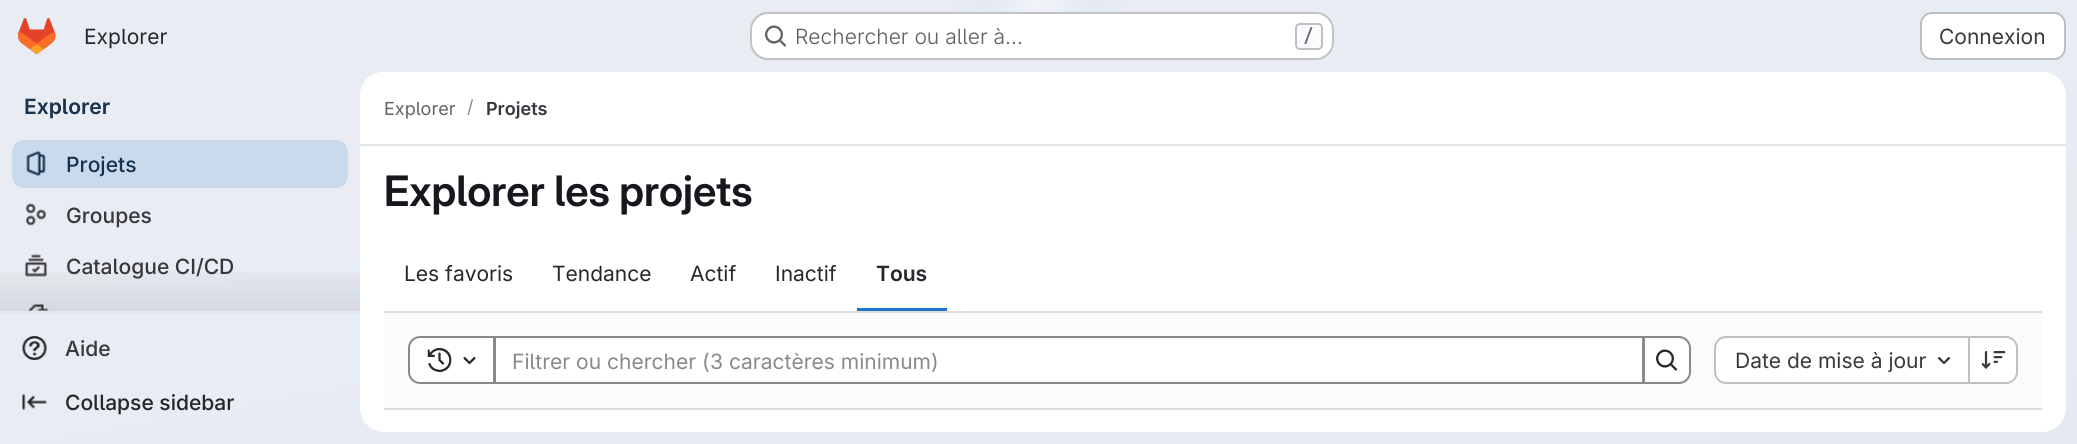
import math
import cairo

surface = cairo.ImageSurface(cairo.FORMAT_RGB24, 2077, 444)
c = cairo.Context(surface)
options = cairo.FontOptions()
options.set_hint_metrics(cairo.HINT_METRICS_OFF)
options.set_hint_style(cairo.HINT_STYLE_NONE)
c.set_font_options(options)
c.set_miter_limit(4)
def C(code):
 c.set_source_rgb(*(v / 255 for v in bytes.fromhex(code[-6:])))
def F(family, size, italic, bold):
 c.select_font_face(family, cairo.FONT_SLANT_ITALIC if italic else cairo.FONT_SLANT_NORMAL, cairo.FONT_WEIGHT_BOLD if bold else cairo.FONT_WEIGHT_NORMAL)
 c.set_font_size(size)
def T(x, y, s):
 c.move_to(x, y)
 c.show_text(s)
def R(x, y, w, h):
 c.rectangle(x, y, w, h)
 c.fill()
def Q(x, y, w, h, r):
 c.new_sub_path()
 for i, (u, v) in enumerate([(x + w - r, y + h - r), (x + r, y + h - r), (x + r, y + r), (x + w - r, y + r)]):
  c.arc(u, v, r, i * math.pi / 2, (i + 1) * math.pi / 2)
 c.close_path()
def I(path, x, y, w, h):
 c.save()
 c.set_source_surface(cairo.ImageSurface.create_from_png(path), x, y)
 c.rectangle(x, y, w, h)
 c.fill()
 c.restore()
C('ffffff')
c.paint()
gradient = cairo.LinearGradient(1108,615,969,-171)
gradient.add_color_stop_rgba(0,0.898,0.914,0.949,1)
gradient.add_color_stop_rgba(.7,0.914,0.929,0.953,1)
c.set_source(gradient)
R(0,0,2077,444)
gradient = cairo.RadialGradient(0,0,0,0,0,1)
gradient.set_matrix(cairo.Matrix(1 / 1039, 0, 0, 1 / 444, -1 * 1039 / 1039, -1 * 0 / 444))
gradient.add_color_stop_rgba(0,0.871,0.898,0.945,1)
gradient.add_color_stop_rgba(.1,0.871,0.898,0.945,0)
c.set_source(gradient)
R(955,0,168,12)
gradient = cairo.RadialGradient(0,0,0,0,0,1)
gradient.set_matrix(cairo.Matrix(1 / 1039, 0, 0, 1 / 444, -1 * 1039 / 1039, -1 * 0 / 444))
gradient.add_color_stop_rgba(0,0.871,0.906,0.945,1)
gradient.add_color_stop_rgba(.07,0.871,0.906,0.945,0)
c.set_source(gradient)
R(1000,0,83,12)
gradient = cairo.RadialGradient(1039,0,0,1039,0,1130)
gradient.add_color_stop_rgba(0,1,1,1,.6)
gradient.add_color_stop_rgba(.05,1,1,1,0)
c.set_source(gradient)
R(991,0,96,12)
I('1.png',18,18,38,36)
F('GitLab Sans',21,0,0)
C('28272d')
T(84,44,'Explorer')
C('ffffff')
Q(750,12,584,48,18)
c.fill()
Q(751,13,582,46,17)
c.set_source_rgba(0.02,0.02,0.024,0.24)
c.stroke()
I('2.png',765,25,21,22)
F('GitLab Sans Light',21,0,0)
C('626168')
T(795,44,'Rechercher ou aller à…')
C('fbfafd')
Q(1296,24,26,25,4)
c.fill_preserve()
C('bfbfc3')
c.stroke()
F('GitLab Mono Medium',18,0,0)
C('626168')
T(1303,42,'/')
C('ffffff')
Q(1921,13,144,46,11)
c.fill_preserve()
C('bfbfc3')
c.stroke()
F('GitLab Sans',21,0,0)
C('3a383f')
T(1939,44,'Connexion')
F('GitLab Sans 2 SemiBold',21,0,0)
C('18334e')
T(24,114,'Explorer')
C('dfe6ec')
R(0,311,360,2)
C('c9daec')
Q(12,140,336,48,12)
c.fill()
I('3.png',26,151,20,25)
F('GitLab Sans Medium',21,0,0)
C('18334e')
T(66,172,'Projets')
I('4.png',25,203,22,23)
C('3a383f')
T(66,223,'Groupes')
I('5.png',25,254,22,23)
T(66,274,'Catalogue CI/CD')
I('6.png',28,304,21,7)
gradient = cairo.LinearGradient(180,257,180,311)
gradient.add_color_stop_rgba(0,0.02,0.02,0.024,0)
gradient.add_color_stop_rgba(1,0.02,0.02,0.024,.08)
c.set_source(gradient)
R(0,272,360,39)
I('7.png',22,336,25,24)
C('3a383f')
T(65,356,'Aide')
I('8.png',22,394,25,16)
C('28272d')
T(65,410,'Collapse sidebar')
C('ffffff')
Q(360,72,1706,360,24)
c.fill()
c.new_path()
c.move_to(384,72)
c.line_to(2042,72)
c.curve_to(2055.5,72,2066,82.5,2066,96)
c.line_to(2066,146)
c.line_to(360,146)
c.line_to(360,96)
c.curve_to(360,82.5,370.5,72,384,72)
c.close_path()
c.fill()
C('dfe6ec')
R(360,144,1706,2)
F('GitLab Sans',18,0,0)
C('626168')
T(384,115,'Explorer')
C('89888d')
T(467,113,'/')
F('GitLab Sans 2 SemiBold',18,0,0)
C('3a383f')
T(486,115,'Projets')
F('GitLab Sans SemiBold',42,0,0)
C('18171d')
T(384,206,'Explorer les projets')
F('GitLab Sans',21,0,0)
C('28272d')
T(404,281,'Les favoris')
T(552,281,'Tendance')
T(690,281,'Actif')
T(775,281,'Inactif')
F('GitLab Sans 2 SemiBold',21,0,0)
T(876,281,'Tous')
C('1f75cb')
R(857,308,90,3)
C('fbfafd')
R(384,313,1658,95)
C('dcdcde')
R(384,311,1658,2)
R(384,408,1658,2)
C('ffffff')
c.rectangle(495,337,1148,46)
c.fill_preserve()
C('89888d')
c.stroke()
C('ffffff')
c.new_path()
c.move_to(420,337)
c.line_to(494,337)
c.line_to(494,383)
c.line_to(420,383)
c.curve_to(414,383,409,378,409,372)
c.line_to(409,348)
c.curve_to(409,342,414,337,420,337)
c.close_path()
c.fill_preserve()
C('89888d')
c.stroke()
I('9.png',427,348,25,24)
I('10.png',463,357,13,8)
F('GitLab Sans',21,0,0)
T(512,369,'Filtrer ou chercher (3 caractères minimum)')
C('ffffff')
c.new_path()
c.move_to(1644,337)
c.line_to(1679,337)
c.curve_to(1685,337,1690,342,1690,348)
c.line_to(1690,372)
c.curve_to(1690,378,1685,383,1679,383)
c.line_to(1644,383)
c.close_path()
c.fill_preserve()
C('89888d')
c.stroke()
I('11.png',1656,349,21,22)
C('ffffff')
c.new_path()
c.move_to(1727,338)
c.line_to(1968,338)
c.line_to(1968,383)
c.line_to(1727,383)
c.curve_to(1721,383,1716,378,1716,372)
c.line_to(1716,349)
c.curve_to(1716,343,1721,338,1727,338)
c.close_path()
c.fill()
C('bfbfc3')
c.set_fill_rule(cairo.FILL_RULE_EVEN_ODD)
c.new_path()
c.move_to(1726,336)
c.line_to(1968,336)
c.line_to(1968,384)
c.line_to(1726,384)
c.curve_to(1720,384,1714,379,1714,372)
c.line_to(1714,348)
c.curve_to(1714,341,1720,336,1726,336)
c.close_path()
c.move_to(1726,338)
c.line_to(1968,338)
c.line_to(1968,382)
c.line_to(1726,382)
c.curve_to(1721,382,1716,378,1716,372)
c.line_to(1716,348)
c.curve_to(1716,342,1721,338,1726,338)
c.close_path()
c.fill()
c.save()
c.set_fill_rule(cairo.FILL_RULE_WINDING)
c.rectangle(1734,348,192,24)
c.clip()
C('3a383f')
T(1735,368,'Date de mise à jour')
c.restore()
I('12.png',1938,357,12,8)
C('ffffff')
c.new_path()
c.move_to(1970,338)
c.line_to(2005,338)
c.curve_to(2011,338,2016,343,2016,349)
c.line_to(2016,372)
c.curve_to(2016,378,2011,383,2005,383)
c.line_to(1970,383)
c.close_path()
c.fill()
C('bfbfc3')
c.new_path()
c.move_to(1970,336)
c.line_to(2006,336)
c.curve_to(2012,336,2018,341,2018,348)
c.line_to(2018,372)
c.curve_to(2018,379,2012,384,2006,384)
c.line_to(1970,384)
c.close_path()
c.move_to(1970,338)
c.line_to(2006,338)
c.curve_to(2011,338,2016,342,2016,348)
c.line_to(2016,372)
c.curve_to(2016,378,2011,382,2006,382)
c.line_to(1970,382)
c.close_path()
c.fill()
R(1968,336,2,48)
I('13.png',1981,351,25,18)
surface.write_to_png('o.png')
